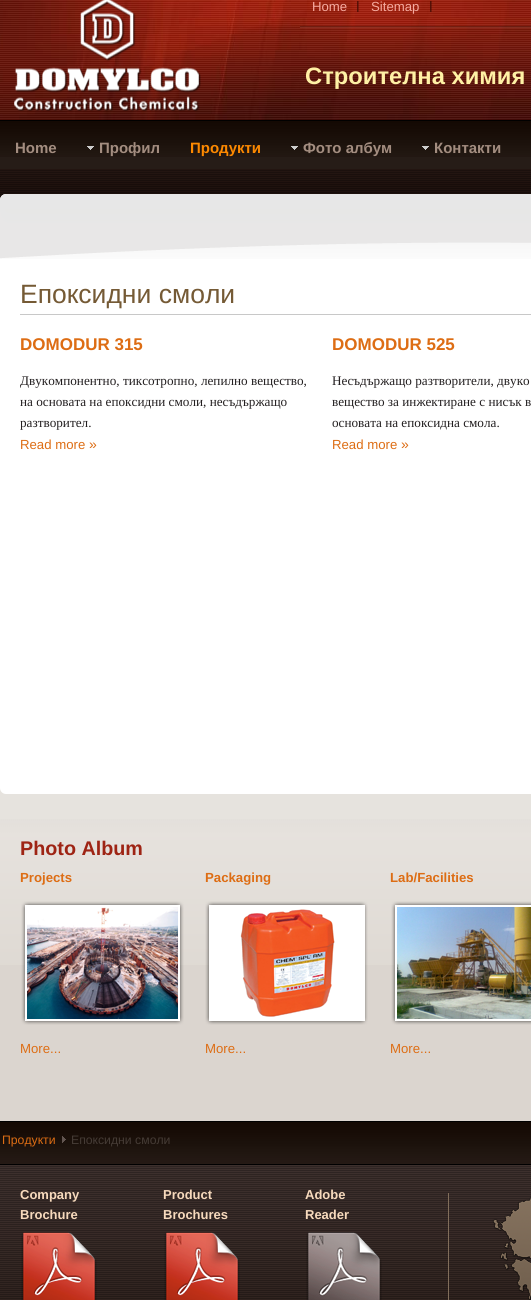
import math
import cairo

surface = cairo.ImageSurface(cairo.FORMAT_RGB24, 531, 1300)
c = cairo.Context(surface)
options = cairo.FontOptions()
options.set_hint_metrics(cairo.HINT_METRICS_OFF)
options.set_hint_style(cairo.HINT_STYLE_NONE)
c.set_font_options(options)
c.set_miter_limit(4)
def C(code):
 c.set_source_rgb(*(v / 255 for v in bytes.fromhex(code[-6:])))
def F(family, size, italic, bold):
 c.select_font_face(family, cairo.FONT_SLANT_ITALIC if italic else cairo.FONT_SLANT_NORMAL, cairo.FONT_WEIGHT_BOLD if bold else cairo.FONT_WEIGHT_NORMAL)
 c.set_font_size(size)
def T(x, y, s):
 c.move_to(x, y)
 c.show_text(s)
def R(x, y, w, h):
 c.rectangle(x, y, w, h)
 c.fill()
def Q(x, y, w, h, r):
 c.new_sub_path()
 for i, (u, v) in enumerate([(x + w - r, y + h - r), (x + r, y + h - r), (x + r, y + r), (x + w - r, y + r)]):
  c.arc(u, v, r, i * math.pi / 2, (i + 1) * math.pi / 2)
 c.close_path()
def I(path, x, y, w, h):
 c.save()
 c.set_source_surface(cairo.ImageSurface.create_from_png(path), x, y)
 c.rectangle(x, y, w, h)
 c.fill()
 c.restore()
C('dbd5cf')
c.paint()
I('1.png',0,0,531,120)
I('2.png',0,0,531,120)
I('3.png',14,0,187,111)
I('4.png',357,1,2,11)
F('Liberation Sans',13.2,0,0)
C('f6aba0')
T(312,11,'Home')
I('5.png',430,1,2,11)
T(371,11,'Sitemap')
I('6.png',300,26,231,2)
F('Liberation Sans',23.75,0,1)
C('fff1a5')
T(305,84,'Строителна химия')
C('261c17')
R(0,157,531,12)
I('7.png',0,121,531,36)
C('000000')
R(0,120,531,1)
F('Liberation Sans',15,0,1)
C('a38d80')
T(15,153,'Home')
I('8.png',87,146,7,4)
T(99,153,'Профил')
C('fd8900')
T(190,153,'Продукти')
I('8.png',291,146,7,4)
C('a38d80')
T(303,153,'Фото албум')
I('8.png',422,146,7,4)
T(434,153,'Контакти')
I('9.png',0,169,531,31)
C('e6e3de')
R(0,788,531,31)
C('ffffff')
Q(0,194,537,600,6)
c.fill()
I('10.png',0,194,531,65)
C('c8c8c8')
R(20,314,511,1)
F('Liberation Sans',26.5,0,0)
C('755a35')
T(20,303,'Епоксидни смоли')
F('Liberation Sans',17,0,1)
C('dd6d14')
T(20,350,'DOMODUR 315')
F('Liberation Serif',13.2,0,0)
C('231f20')
T(20,385,'Двукомпонентно, тиксотропно, лепилно вещество,')
T(20,406,'на основата на епоксидни смоли, несъдържащо')
T(20,427,'разтворител.')
F('Liberation Sans',13.2,0,0)
C('dd6d14')
T(20,449,'Read more')
F('Liberation Sans',14,0,0)
T(89,449,'»')
F('Liberation Sans',17,0,1)
T(332,350,'DOMODUR 525')
F('Liberation Serif',13.2,0,0)
C('231f20')
T(332,385,'Несъдържащо разтворители, двуко')
T(332,406,'вещество за инжектиране с нисък в')
T(332,427,'основата на епоксидна смола.')
F('Liberation Sans',13.2,0,0)
C('dd6d14')
T(332,449,'Read more')
F('Liberation Sans',14,0,0)
T(401,449,'»')
I('11.png',0,819,531,146)
F('Liberation Sans',19.75,0,1)
C('9e2414')
T(20,855,'Photo Album')
F('Liberation Sans',13.2,0,1)
C('dd6d14')
T(20,882,'Projects')
I('12.png',21,901,163,124)
F('Liberation Sans',13.2,0,0)
T(20,1053,'More...')
F('Liberation Sans',13.2,0,1)
T(205,882,'Packaging')
I('13.png',205,901,163,124)
F('Liberation Sans',13.2,0,0)
T(205,1053,'More...')
F('Liberation Sans',13.2,0,1)
T(390,882,'Lab/Facilities')
I('14.png',391,901,140,124)
F('Liberation Sans',13.2,0,0)
T(390,1053,'More...')
I('15.png',0,1122,531,42)
C('000000')
R(0,1121,531,1)
R(0,1164,531,1)
F('Liberation Sans',12.25,0,0)
C('dd6d14')
T(2,1144,'Продукти')
I('16.png',62,1136,4,7)
C('453b35')
T(71,1144,'Епоксидни смоли')
I('17.png',0,1165,531,135)
I('18.png',448,1193,83,107)
F('Liberation Sans',13,0,1)
C('f7dabd')
T(20,1199,'Company')
T(20,1219,'Brochure')
I('19.png',21,1232,76,68)
T(163,1199,'Product')
T(163,1219,'Brochures')
I('19.png',164,1232,76,68)
T(305,1199,'Adobe')
T(305,1219,'Reader')
I('20.png',306,1232,76,68)
surface.write_to_png('o.png')
